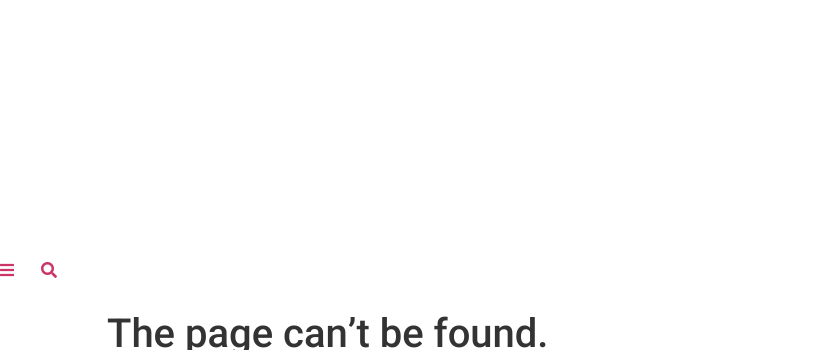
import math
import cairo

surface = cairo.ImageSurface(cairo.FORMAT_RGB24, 813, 350)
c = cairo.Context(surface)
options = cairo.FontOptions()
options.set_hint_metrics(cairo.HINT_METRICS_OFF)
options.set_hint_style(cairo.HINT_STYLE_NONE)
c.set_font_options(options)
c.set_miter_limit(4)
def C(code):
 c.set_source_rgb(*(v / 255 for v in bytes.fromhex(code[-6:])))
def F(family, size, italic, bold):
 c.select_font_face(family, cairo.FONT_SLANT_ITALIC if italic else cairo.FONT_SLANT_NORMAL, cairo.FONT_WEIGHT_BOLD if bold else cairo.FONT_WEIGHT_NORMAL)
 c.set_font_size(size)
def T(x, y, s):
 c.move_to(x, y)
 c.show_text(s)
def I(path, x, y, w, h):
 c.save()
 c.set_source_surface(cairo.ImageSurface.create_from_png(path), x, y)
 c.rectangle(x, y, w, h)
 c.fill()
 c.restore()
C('ffffff')
c.paint()
I('1.png',0,263,14,14)
I('2.png',41,262,16,16)
F('Roboto Medium',40,0,0)
C('333333')
T(107,347,'The page can’t be found.')
surface.write_to_png('o.png')
